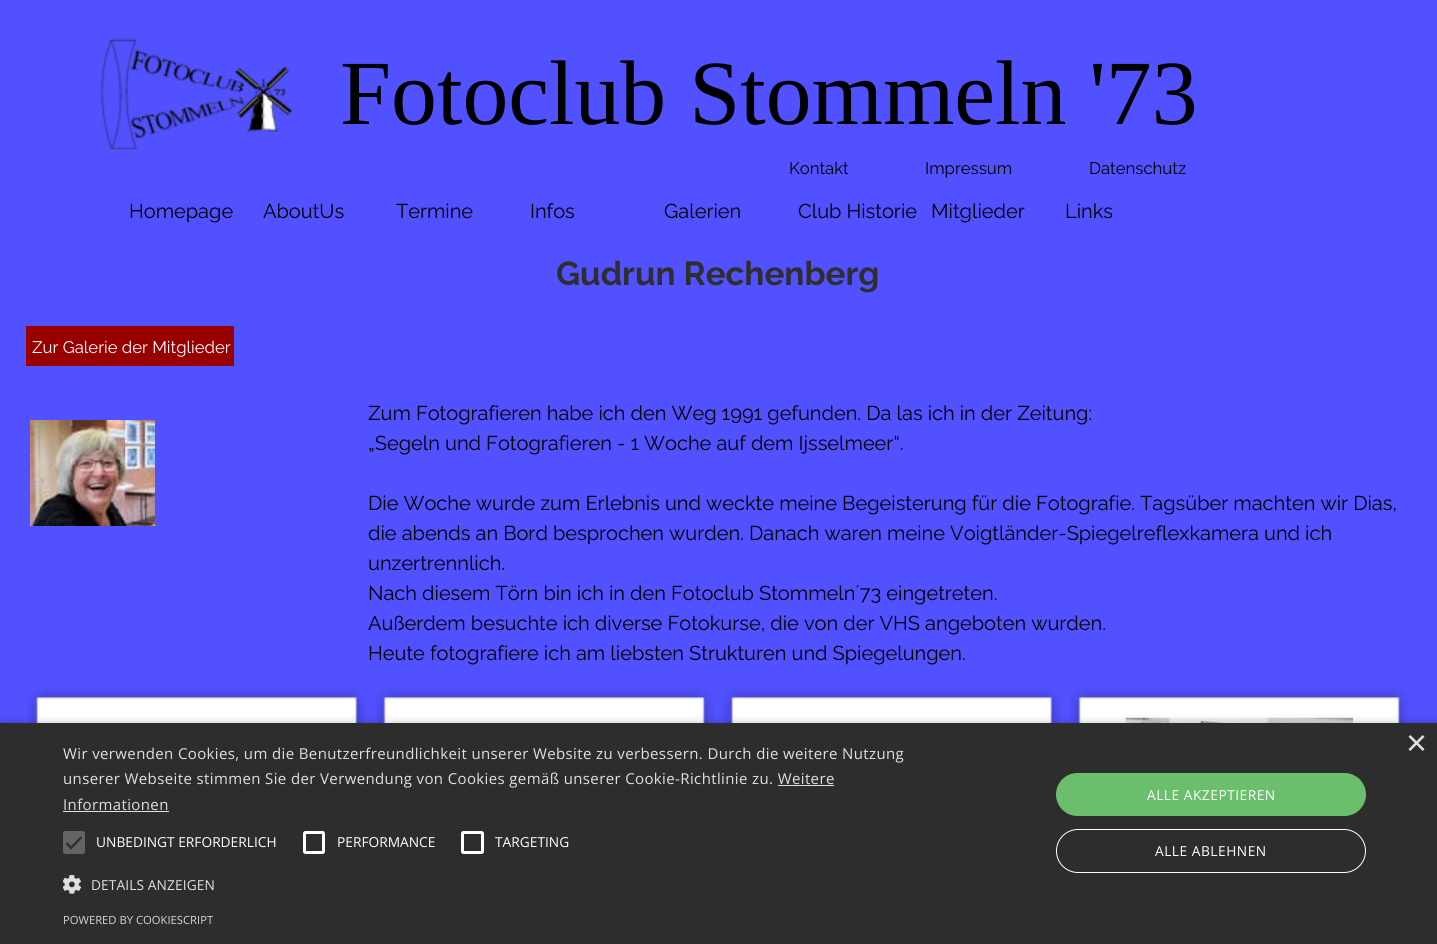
import math
import cairo

surface = cairo.ImageSurface(cairo.FORMAT_RGB24, 1437, 944)
c = cairo.Context(surface)
options = cairo.FontOptions()
options.set_hint_metrics(cairo.HINT_METRICS_OFF)
options.set_hint_style(cairo.HINT_STYLE_NONE)
c.set_font_options(options)
c.set_miter_limit(4)
def C(code):
 c.set_source_rgb(*(v / 255 for v in bytes.fromhex(code[-6:])))
def F(family, size, italic, bold):
 c.select_font_face(family, cairo.FONT_SLANT_ITALIC if italic else cairo.FONT_SLANT_NORMAL, cairo.FONT_WEIGHT_BOLD if bold else cairo.FONT_WEIGHT_NORMAL)
 c.set_font_size(size)
def T(x, y, s):
 c.move_to(x, y)
 c.show_text(s)
def L(x, y, s, letter, word):
 c.move_to(x, y)
 for ch in s:
  c.show_text(ch)
  c.rel_move_to(letter + word * (ch == ' '), 0)
def R(x, y, w, h):
 c.rectangle(x, y, w, h)
 c.fill()
def Q(x, y, w, h, r):
 c.new_sub_path()
 for i, (u, v) in enumerate([(x + w - r, y + h - r), (x + r, y + h - r), (x + r, y + r), (x + w - r, y + r)]):
  c.arc(u, v, r, i * math.pi / 2, (i + 1) * math.pi / 2)
 c.close_path()
def S(x, y, w, h, r, blur, alpha):
 c.push_group_with_content(cairo.CONTENT_ALPHA)
 c.set_operator(cairo.OPERATOR_SOURCE)
 for i in range(15, -16, -2):
  e = blur * i / 6
  if min(w, h) + 2 * e > 0:
   c.set_source_rgba(0, 0, 0, alpha * math.erfc((i - 1) / 8.5) / 2)
   Q(x - e, y - e, w + 2 * e, h + 2 * e, max(0, min(r + e + blur * .6, min(w, h) / 2 + e)))
   c.fill()
 c.mask(c.pop_group())
def I(path, x, y, w, h):
 c.save()
 c.set_source_surface(cairo.ImageSurface.create_from_png(path), x, y)
 c.rectangle(x, y, w, h)
 c.fill()
 c.restore()
C('5151ff')
c.paint()
I('1.png',100,38,193,112)
F('Liberation Serif',91.75,0,0)
C('000000')
T(340,124,'Fotoclub Stommeln \'73')
F('Raleway',16.75,0,0)
T(789,174,'Kontakt')
T(925,174,'Impressum')
T(1089,174,'Datenschutz')
F('Raleway',20,0,0)
T(129,218,'Homepage')
T(263,218,'AboutUs')
T(396,218,'Termine')
T(530,218,'Infos')
T(664,218,'Galerien')
T(798,218,'Club Historie')
T(931,218,'Mitglieder')
T(1065,218,'Links')
F('Raleway',33.25,0,1)
C('2f2e2e')
T(556,285,'Gudrun Rechenberg')
C('980000')
R(26,326,208,40)
F('Raleway',16.75,0,0)
C('ffffff')
T(32,353,'Zur Galerie der Mitglieder')
I('2.png',30,420,125,106)
F('Raleway',20,0,0)
C('000000')
T(368,420,'Zum Fotografieren habe ich den Weg 1991 gefunden. Da las ich in der Zeitung:')
T(368,450,'„Segeln und Fotografieren - 1 Woche auf dem Ijsselmeer“.')
T(368,510,'Die Woche wurde zum Erlebnis und weckte meine Begeisterung für die Fotografie. Tagsüber machten wir Dias,')
T(368,540,'die abends an Bord besprochen wurden. Danach waren meine Voigtländer-Spiegelreflexkamera und ich')
T(368,570,'unzertrennlich.')
T(368,600,'Nach diesem Törn bin ich in den Fotoclub Stommeln´73 eingetreten.')
T(368,630,'Außerdem besuchte ich diverse Fotokurse, die von der VHS angeboten wurden.')
T(368,660,'Heute fotografiere ich am liebsten Strukturen und Spiegelungen.')
I('3.png',27,688,339,35)
I('4.png',375,688,339,35)
I('3.png',722,688,339,35)
I('5.png',1070,688,339,35)
C('000000')
S(1,725,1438,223,0,5,.35)
C('2d2d2d')
R(0,723,1437,221)
F('Liberation Sans',36,0,0)
C('e0e0e0')
T(1406,755,'×')
F('Open Sans',15,0,0)
L(63,759,'Wir verwenden Cookies, um die Benutzerfreundlichkeit unserer Website zu verbessern. Durch die weitere Nutzung',.38,0)
L(63,784,'unserer Webseite stimmen Sie der Verwendung von Cookies gemäß unserer Cookie-Richtlinie zu. Weitere',.38,0)
L(63,810,'Informationen',.38,0)
R(778,785,56,1)
R(63,811,106,1)
C('646464')
Q(63,831,22,23,2.5)
c.fill()
c.new_path()
c.move_to(66.5,843)
c.line_to(71,848)
c.line_to(81.5,837)
C('2d2d2d')
c.set_line_width(2.3)
c.stroke()
F('Open Sans',13.75,0,0)
C('ffffff')
T(96,847,'UNBEDINGT ERFORDERLICH')
Q(304.5,832.5,19,20,1)
c.set_line_width(3)
c.stroke()
T(337,847,'PERFORMANCE')
Q(462.5,832.5,20,20,1)
c.stroke()
T(495,847,'TARGETING')
I('6.png',63,875,18,19)
C('e0e0e0')
L(91,890,'DETAILS ANZEIGEN',.1,0)
C('6bbe6b')
Q(1056,773,310,43,21.5)
c.fill()
C('ffffff')
L(1147,800,'ALLE AKZEPTIEREN',.5,0)
Q(1056.5,829.5,309,43,21.5)
c.set_line_width(1)
c.stroke()
L(1155,856,'ALLE ABLEHNEN',.5,0)
F('Open Sans',11.25,0,0)
C('d5d5d5')
T(63,924,'POWERED BY COOKIESCRIPT')
surface.write_to_png('o.png')
